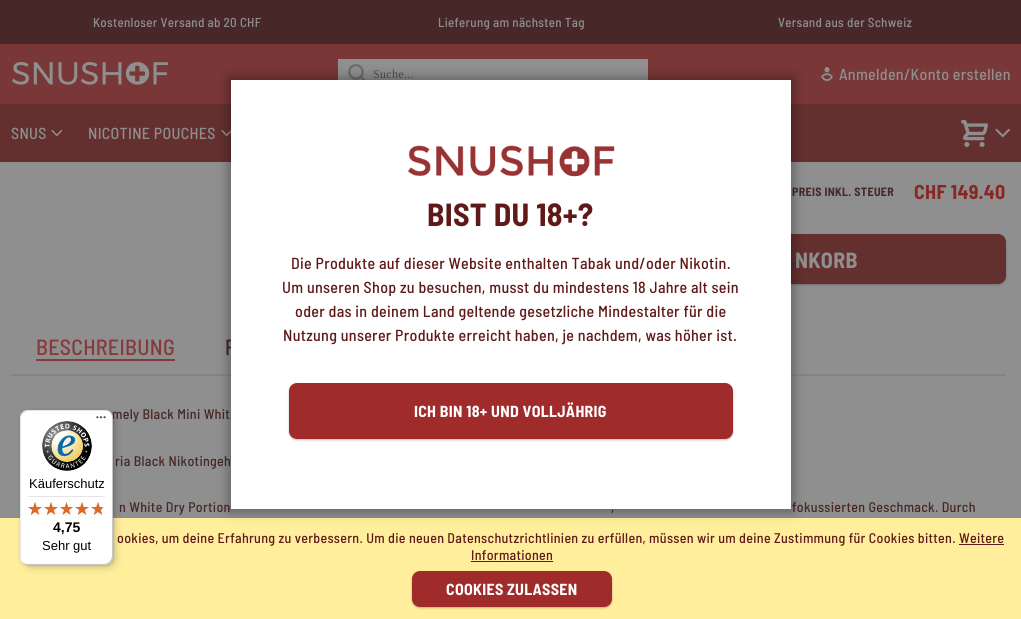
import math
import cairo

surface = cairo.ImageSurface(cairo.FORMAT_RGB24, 1021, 619)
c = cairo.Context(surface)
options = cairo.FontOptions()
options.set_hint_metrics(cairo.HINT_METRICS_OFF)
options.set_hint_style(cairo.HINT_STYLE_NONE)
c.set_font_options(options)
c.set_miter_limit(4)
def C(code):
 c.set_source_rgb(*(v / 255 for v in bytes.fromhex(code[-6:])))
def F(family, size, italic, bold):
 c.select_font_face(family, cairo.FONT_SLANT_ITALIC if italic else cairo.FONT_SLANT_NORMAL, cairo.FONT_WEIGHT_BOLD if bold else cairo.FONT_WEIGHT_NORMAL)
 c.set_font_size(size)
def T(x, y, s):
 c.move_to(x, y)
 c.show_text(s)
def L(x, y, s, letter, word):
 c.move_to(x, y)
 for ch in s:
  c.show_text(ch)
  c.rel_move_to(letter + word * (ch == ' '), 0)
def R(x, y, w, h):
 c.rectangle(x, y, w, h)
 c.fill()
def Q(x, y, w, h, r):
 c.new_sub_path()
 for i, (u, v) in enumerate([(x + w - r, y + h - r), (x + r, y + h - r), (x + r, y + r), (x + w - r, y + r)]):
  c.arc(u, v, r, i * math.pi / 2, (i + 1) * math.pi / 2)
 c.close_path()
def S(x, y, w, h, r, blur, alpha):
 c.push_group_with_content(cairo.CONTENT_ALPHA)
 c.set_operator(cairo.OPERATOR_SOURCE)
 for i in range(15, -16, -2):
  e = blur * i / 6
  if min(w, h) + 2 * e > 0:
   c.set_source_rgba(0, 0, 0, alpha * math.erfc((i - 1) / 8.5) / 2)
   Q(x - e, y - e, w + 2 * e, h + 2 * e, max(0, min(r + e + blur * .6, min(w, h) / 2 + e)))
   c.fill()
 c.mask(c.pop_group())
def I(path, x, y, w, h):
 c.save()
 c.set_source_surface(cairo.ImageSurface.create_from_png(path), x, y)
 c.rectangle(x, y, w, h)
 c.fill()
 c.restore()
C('8f8f8f')
c.paint()
C('472727')
R(0,0,1021,44)
F('Barlow Semi Condensed Medium',13,0,0)
C('8f8f8f')
L(93,27,'Kostenloser Versand ab 20 CHF',.3,0)
L(438,27,'Lieferung am nächsten Tag',.3,0)
L(778,27,'Versand aus der Schweiz',.3,0)
C('7a3737')
R(0,44,1021,60)
I('1.png',12,62,156,23)
C('8f8f8f')
R(338,59,310,21)
I('2.png',348,64,18,16)
F('Liberation Serif',12,0,0)
C('4e4e4e')
L(373,78,'Suche...',.3,0)
I('3.png',821,67,12,14)
F('Barlow Semi Condensed Medium',16,0,0)
C('8f8f8f')
L(839,80,'Anmelden/Konto erstellen',.3,0)
C('642f2f')
R(0,104,1021,58)
C('8f8f8f')
L(11,139,'SNUS',.3,0)
I('4.png',51,129,12,8)
L(88,139,'NICOTINE POUCHES',.3,0)
I('5.png',221,129,10,8)
I('6.png',961,120,27,27)
I('7.png',995,128,15,10)
F('Barlow Semi Condensed',12,0,1)
C('472727')
L(792,196,'PREIS INKL. STEUER',.3,0)
F('Barlow Semi Condensed',20,0,1)
C('882724')
L(914,199,'CHF 149.40',.3,0)
C('1c1c1c')
S(528,235,478,50,8,1,.25)
C('642f2f')
Q(529,235,476,48,7)
c.fill_preserve()
c.stroke()
F('Barlow Semi Condensed',22,0,1)
C('8f8f8f')
L(795,268,'NKORB',.3,0)
C('87383a')
R(36,359,139,2)
F('Barlow Semi Condensed Medium',22,0,0)
L(36,355,'BESCHREIBUNG',.3,0)
C('472727')
L(225,355,'P',.3,0)
C('848484')
R(11,374,995,2)
F('Barlow Semi Condensed Medium',14,0,0)
C('472727')
L(112,419,'mely Black Mini Whit',.3,0)
L(115,466,'ria Black Nikotingeh',.3,0)
L(119,512,'n White Dry Portion',.3,0)
L(611,512,',',.3,0)
L(792,512,'fokussierten Geschmack. Durch',.3,0)
C('ffee9c')
R(0,518,1021,101)
C('000000')
S(229,78,564,433,0,6,.35)
C('ffffff')
R(231,80,560,429)
I('8.png',408,145,207,32)
F('Barlow Semi Condensed',32,0,1)
C('601919')
L(427,226,'BIST DU 18+?',.3,0)
F('Barlow Semi Condensed Medium',16,0,0)
L(291,269,'Die Produkte auf dieser Website enthalten Tabak und/oder Nikotin.',.3,0)
L(282,293,'Um unseren Shop zu besuchen, musst du mindestens 18 Jahre alt sein',.3,0)
L(295,317,'oder das in deinem Land geltende gesetzliche Mindestalter für die',.3,0)
L(283,341,'Nutzung unserer Produkte erreicht haben, je nachdem, was höher ist.',.3,0)
C('000000')
S(289,384,444,56,8,1,.25)
C('9f2b2b')
Q(290,384,442,54,7)
c.fill_preserve()
c.stroke()
F('Barlow Semi Condensed',16,0,1)
C('ffffff')
L(414,417,'ICH BIN 18+ UND VOLLJÄHRIG',.3,0)
C('000000')
S(23,413,93,155,8,4,.15)
S(21,411,93,155,8,1,.15)
C('ffffff')
Q(20,410,93,155,8)
c.fill()
c.set_source_rgba(0,0,0,0.1)
c.new_path()
c.move_to(29,411)
c.line_to(106,411)
c.curve_to(108,411,110,412,112,414)
c.curve_to(110,412,108,410,105,410)
c.line_to(28,410)
c.curve_to(24,410,20,414,20,418)
c.line_to(20,557)
c.curve_to(20,560,22,562,24,564)
c.curve_to(22,562,21,560,21,558)
c.line_to(21,419)
c.curve_to(21,415,25,411,29,411)
c.close_path()
c.fill()
c.set_source_rgba(0,0,0,0.2)
c.new_path()
c.move_to(21,561)
c.curve_to(23,563,25,565,28,565)
c.line_to(105,565)
c.curve_to(109,565,113,561,113,557)
c.line_to(113,418)
c.curve_to(113,415,111,413,109,411)
c.curve_to(111,413,112,415,112,417)
c.line_to(112,556)
c.curve_to(112,560,108,564,104,564)
c.line_to(27,564)
c.curve_to(25,564,23,563,21,561)
c.close_path()
c.fill()
c.set_source_rgba(0.196,0.196,0.196,0.2)
c.new_path()
c.move_to(22,562)
c.curve_to(23,564,26,565,28,565)
c.line_to(105,565)
c.curve_to(109,565,113,561,113,557)
c.line_to(113,418)
c.curve_to(113,416,112,413,110,412)
c.curve_to(111,413,112,415,112,417)
c.line_to(112,556)
c.curve_to(112,561,109,564,104,564)
c.line_to(27,564)
c.curve_to(25,564,23,563,22,562)
c.close_path()
c.fill()
c.set_source_rgba(1,1,1,0.3)
c.new_path()
c.move_to(112,418)
c.curve_to(112,413,109,410,104,410)
c.line_to(105,410)
c.curve_to(109,410,113,414,113,418)
c.line_to(113,557)
c.curve_to(113,561,109,565,105,565)
c.line_to(28,565)
c.curve_to(24,565,20,561,20,557)
c.line_to(20,556)
c.curve_to(20,561,23,564,28,564)
c.line_to(104,564)
c.curve_to(109,564,112,561,112,556)
c.close_path()
c.fill()
I('9.png',96,416,10,3)
I('10.png',42,421,50,50)
F('Liberation Sans',13,0,0)
C('000000')
T(29,488,'Käuferschutz')
C('e5e5e5')
R(28,496,77,1)
I('11.png',28,502,14,13)
I('11.png',44,502,14,13)
I('12.png',60,502,13,13)
I('11.png',75,502,14,13)
I('11.png',91,502,14,13)
I('13.png',28,502,14,13)
I('13.png',44,502,14,13)
I('14.png',60,502,13,13)
I('13.png',75,502,14,13)
I('15.png',91,502,11,13)
F('Liberation Sans',14,0,1)
C('000000')
T(53,532,'4,75')
F('Liberation Sans',13,0,0)
T(42,550,'Sehr gut')
F('Barlow Semi Condensed Medium',14,0,0)
C('601919')
L(117,543,'ookies, um deine Erfahrung zu verbessern. Um die neuen Datenschutzrichtlinien zu erfüllen, müssen wir um deine Zustimmung für Cookies bitten. Weitere',.3,0)
L(471,560,'Informationen',.3,0)
R(959,544,45,1)
R(471,561,82,1)
C('000000')
S(412,572,200,36,8,1,.25)
C('9f2b2b')
Q(413,572,198,34,7)
c.fill_preserve()
c.stroke()
F('Barlow Semi Condensed',16,0,1)
C('ffffff')
L(446,595,'COOKIES ZULASSEN',.3,0)
surface.write_to_png('o.png')
